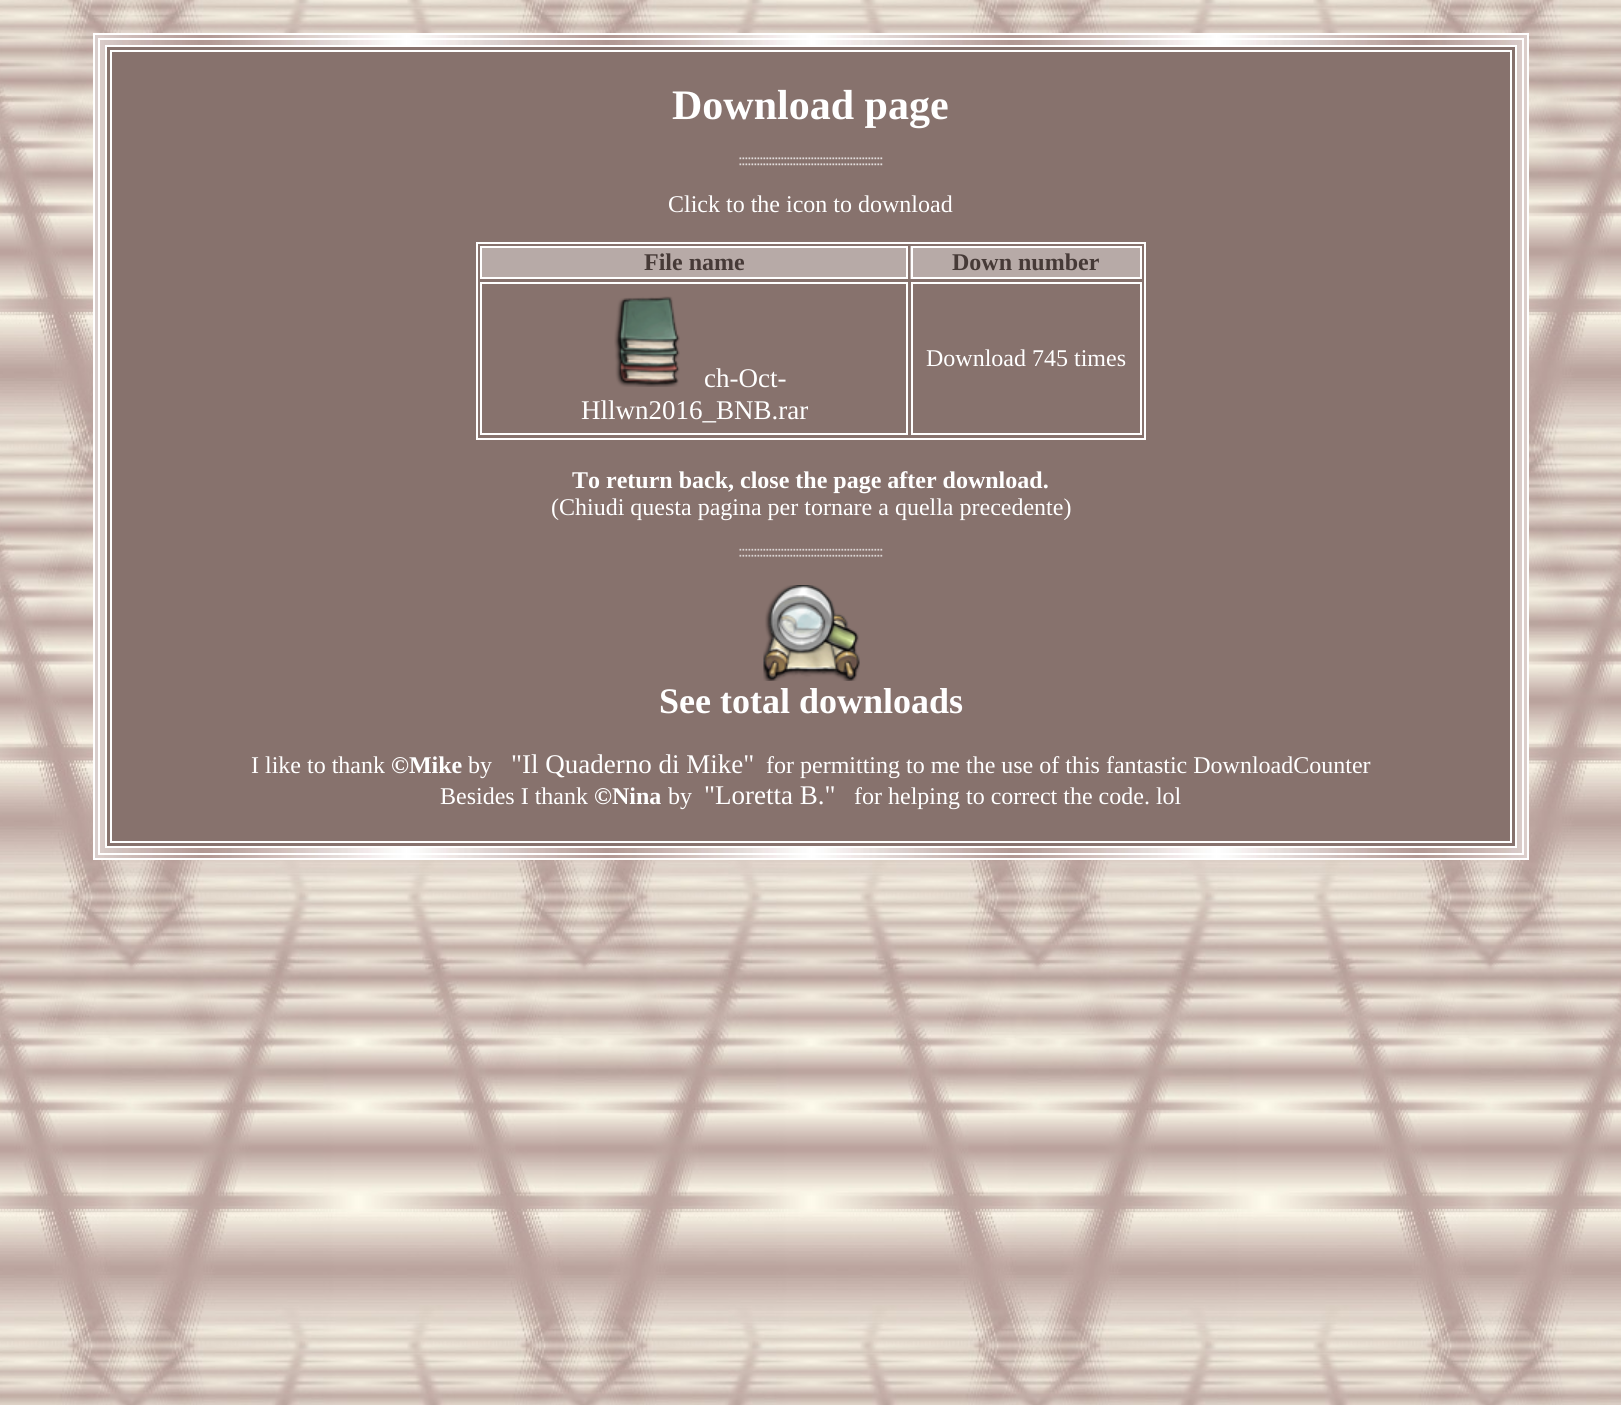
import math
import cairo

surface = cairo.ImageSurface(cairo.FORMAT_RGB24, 1621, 1405)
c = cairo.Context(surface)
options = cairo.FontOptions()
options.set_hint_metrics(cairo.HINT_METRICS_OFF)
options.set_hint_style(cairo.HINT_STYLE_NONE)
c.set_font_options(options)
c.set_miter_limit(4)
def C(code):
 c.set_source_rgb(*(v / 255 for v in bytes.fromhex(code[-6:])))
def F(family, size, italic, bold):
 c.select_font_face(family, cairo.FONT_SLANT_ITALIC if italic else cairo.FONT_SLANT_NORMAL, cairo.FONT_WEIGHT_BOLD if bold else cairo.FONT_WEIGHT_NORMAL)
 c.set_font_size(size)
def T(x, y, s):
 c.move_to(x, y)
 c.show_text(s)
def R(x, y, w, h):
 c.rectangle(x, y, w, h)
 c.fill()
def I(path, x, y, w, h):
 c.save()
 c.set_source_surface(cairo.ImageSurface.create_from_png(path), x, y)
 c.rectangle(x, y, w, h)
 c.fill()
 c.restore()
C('ffffff')
c.paint()
I('1.png',0,0,1621,1405)
I('2.png',95,35,1432,823)
c.rectangle(94,34,1434,825)
C('ffffff')
c.stroke()
c.rectangle(99,39,1424,815)
c.stroke()
C('87726d')
c.rectangle(106,46,1410,801)
c.fill_preserve()
C('ffffff')
c.stroke()
c.rectangle(111,51,1400,791)
c.stroke()
F('Liberation Serif',42,0,1)
T(672,119,'Download page')
I('3.png',739,157,144,9)
F('Liberation Serif',24,0,0)
T(668,212,'Click to the icon to download')
c.rectangle(477,243,668,196)
c.stroke()
C('b7aaa7')
c.rectangle(481,247,426,31)
c.fill_preserve()
C('ffffff')
c.stroke()
F('Liberation Serif',24,0,1)
C('463a37')
T(644,270,'File name')
C('b7aaa7')
R(910,246,230,33)
c.rectangle(912,247,229,31)
C('ffffff')
c.stroke()
C('463a37')
T(952,270,'Down number')
c.rectangle(912,283,229,151)
C('ffffff')
c.stroke()
F('Liberation Serif',24,0,0)
T(926,366,'Download 745 times')
c.rectangle(481,283,426,151)
c.stroke()
I('4.png',614,296,66,91)
F('Liberation Serif',27,0,0)
T(704,387,'ch-Oct-')
T(581,419,'Hllwn2016_BNB.rar')
F('Liberation Serif',24,0,1)
T(572,488,'To return back, close the page after download.')
F('Liberation Serif',24,0,0)
T(551,515,'(Chiudi questa pagina per tornare a quella precedente)')
I('5.png',739,548,144,9)
I('6.png',763,585,97,96)
F('Liberation Serif',36,0,1)
T(659,713,'See total downloads')
F('Liberation Serif',24,0,0)
T(251,773,'I like to thank')
F('Liberation Serif',24,0,1)
T(391,773,'©Mike')
F('Liberation Serif',24,0,0)
T(468,773,'by')
F('Liberation Serif',27,0,0)
T(511,773,'"Il Quaderno di Mike"')
F('Liberation Serif',24,0,0)
T(766,773,'for permitting to me the use of this fantastic DownloadCounter')
T(440,804,'Besides I thank')
F('Liberation Serif',24,0,1)
T(594,804,'©Nina')
F('Liberation Serif',24,0,0)
T(668,804,'by')
F('Liberation Serif',27,0,0)
T(704,804,'"Loretta B."')
F('Liberation Serif',24,0,0)
T(854,804,'for helping to correct the code. lol')
surface.write_to_png('o.png')
